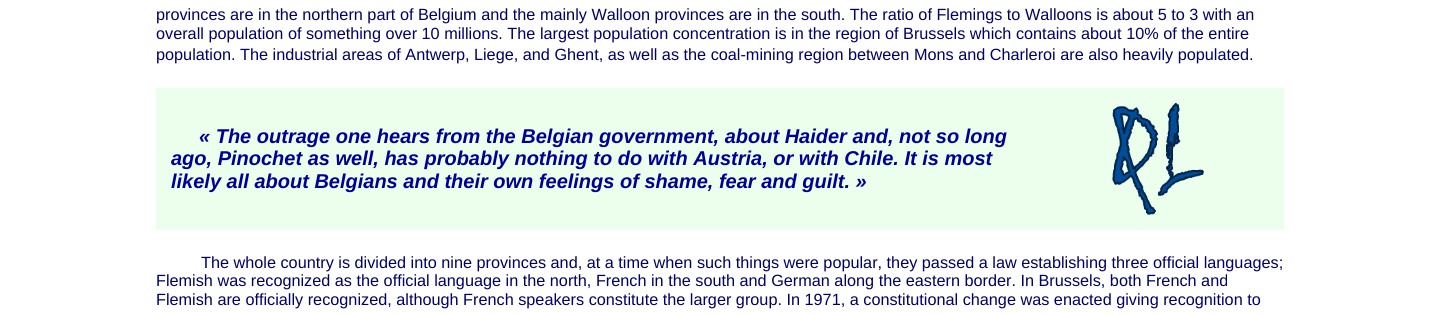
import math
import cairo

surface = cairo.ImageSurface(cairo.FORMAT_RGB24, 1439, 315)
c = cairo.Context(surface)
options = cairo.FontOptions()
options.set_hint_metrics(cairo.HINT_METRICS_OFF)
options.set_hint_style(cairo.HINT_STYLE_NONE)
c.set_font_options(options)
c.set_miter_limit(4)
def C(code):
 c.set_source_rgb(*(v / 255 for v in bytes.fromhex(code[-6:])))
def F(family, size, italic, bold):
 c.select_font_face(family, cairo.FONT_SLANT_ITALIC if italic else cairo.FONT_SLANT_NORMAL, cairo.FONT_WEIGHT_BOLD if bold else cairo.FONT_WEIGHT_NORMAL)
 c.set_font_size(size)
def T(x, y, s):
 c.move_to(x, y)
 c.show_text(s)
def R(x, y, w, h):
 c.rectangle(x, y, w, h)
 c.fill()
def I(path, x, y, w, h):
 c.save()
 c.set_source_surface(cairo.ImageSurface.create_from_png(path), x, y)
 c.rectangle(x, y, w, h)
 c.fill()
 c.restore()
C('ffffff')
c.paint()
F('Liberation Sans',16.25,0,0)
C('000066')
T(156,20,'provinces are in the northern part of Belgium and the mainly Walloon provinces are in the south. The ratio of Flemings to Walloons is about 5 to 3 with an')
T(156,39,'overall population of something over 10 millions. The largest population concentration is in the region of Brussels which contains about 10% of the entire')
T(156,60,'population. The industrial areas of Antwerp, Liege, and Ghent, as well as the coal-mining region between Mons and Charleroi are also heavily populated.')
C('ecffec')
R(156,88,1128,142)
F('Liberation Sans',20,1,1)
C('000099')
T(199,143,'« The outrage one hears from the Belgian government, about Haider and, not so long')
T(171,165,'ago, Pinochet as well, has probably nothing to do with Austria, or with Chile. It is most')
T(171,188,'likely all about Belgians and their own feelings of shame, fear and guilt. »')
I('1.png',1112,103,92,112)
F('Liberation Sans',16.25,0,0)
C('000066')
T(201,268,'The whole country is divided into nine provinces and, at a time when such things were popular, they passed a law establishing three official languages;')
T(156,286,'Flemish was recognized as the official language in the north, French in the south and German along the eastern border. In Brussels, both French and')
T(156,305,'Flemish are officially recognized, although French speakers constitute the larger group. In 1971, a constitutional change was enacted giving recognition to')
surface.write_to_png('o.png')
